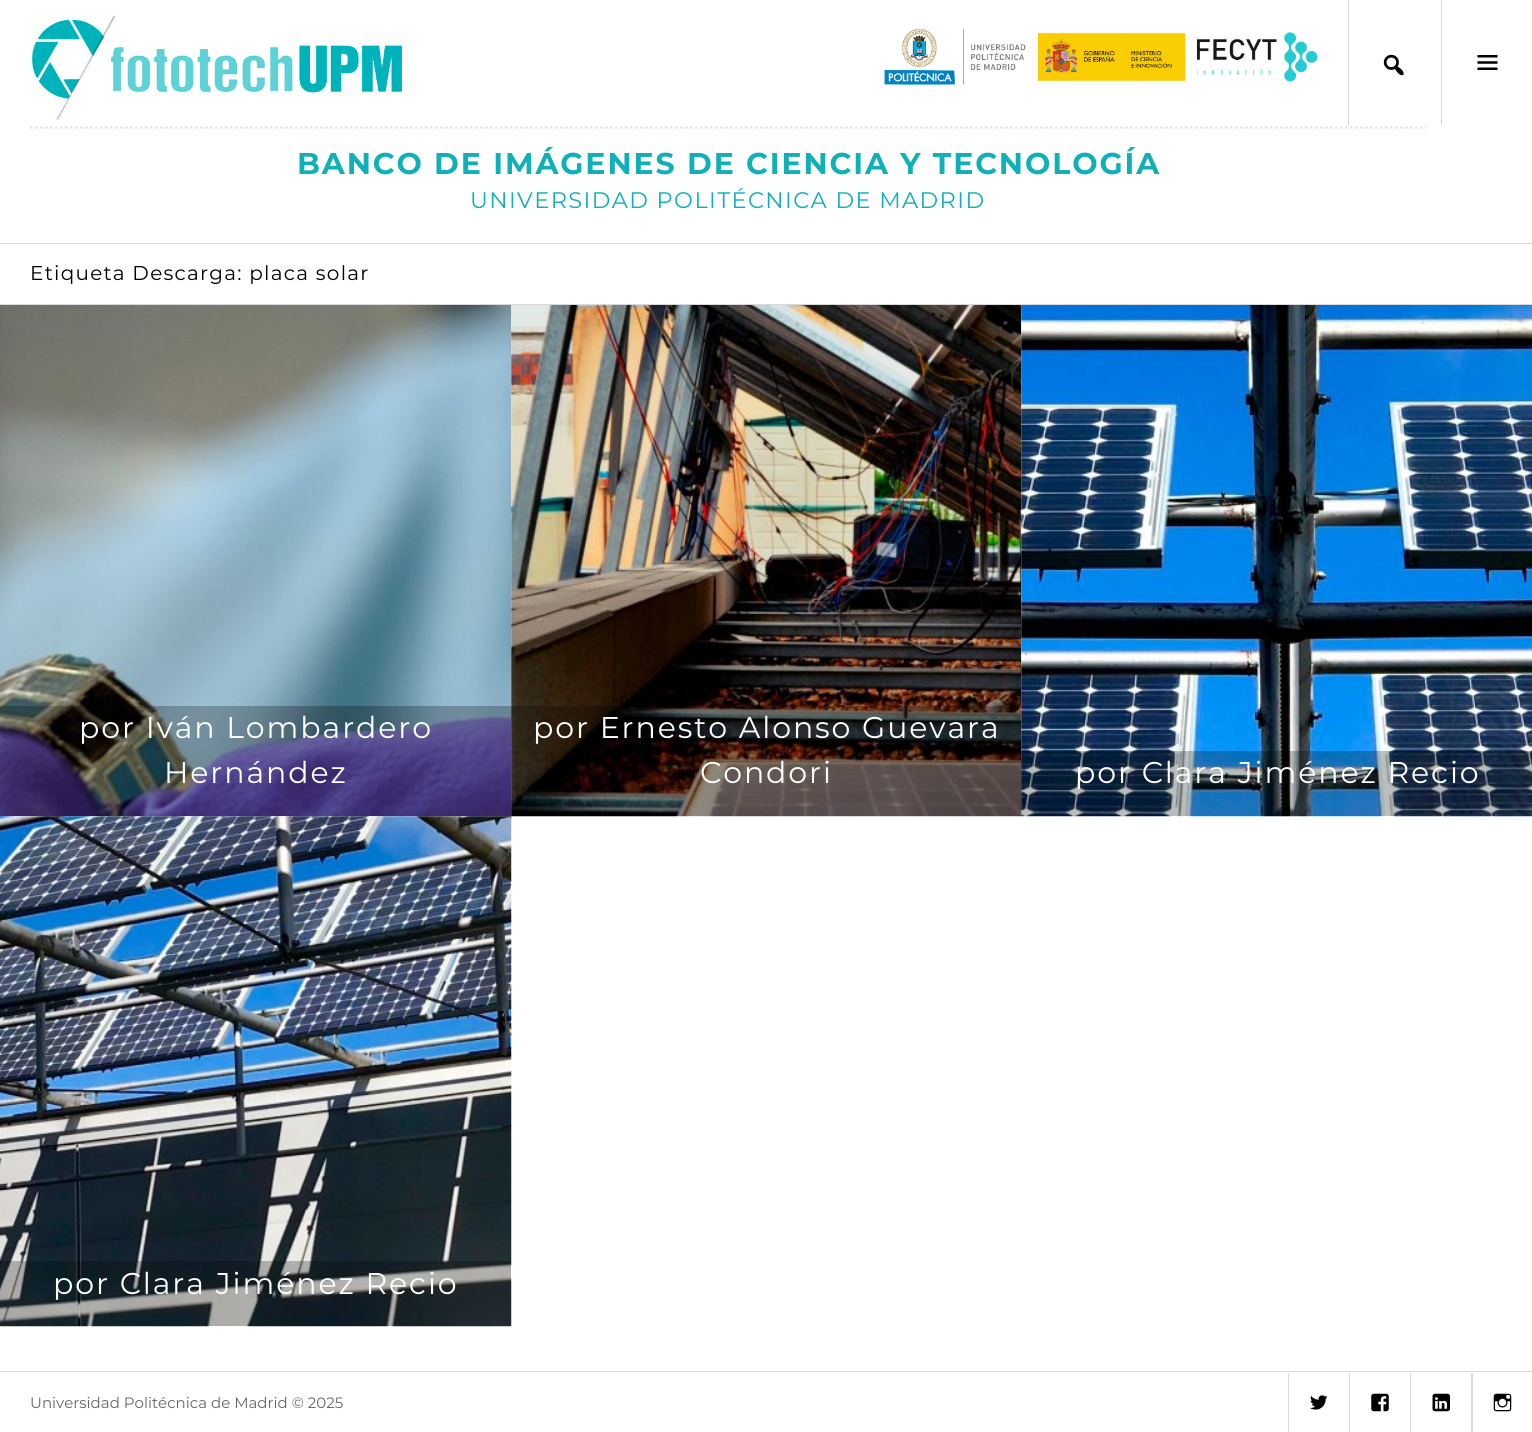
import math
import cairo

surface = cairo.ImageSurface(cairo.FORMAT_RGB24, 1532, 1432)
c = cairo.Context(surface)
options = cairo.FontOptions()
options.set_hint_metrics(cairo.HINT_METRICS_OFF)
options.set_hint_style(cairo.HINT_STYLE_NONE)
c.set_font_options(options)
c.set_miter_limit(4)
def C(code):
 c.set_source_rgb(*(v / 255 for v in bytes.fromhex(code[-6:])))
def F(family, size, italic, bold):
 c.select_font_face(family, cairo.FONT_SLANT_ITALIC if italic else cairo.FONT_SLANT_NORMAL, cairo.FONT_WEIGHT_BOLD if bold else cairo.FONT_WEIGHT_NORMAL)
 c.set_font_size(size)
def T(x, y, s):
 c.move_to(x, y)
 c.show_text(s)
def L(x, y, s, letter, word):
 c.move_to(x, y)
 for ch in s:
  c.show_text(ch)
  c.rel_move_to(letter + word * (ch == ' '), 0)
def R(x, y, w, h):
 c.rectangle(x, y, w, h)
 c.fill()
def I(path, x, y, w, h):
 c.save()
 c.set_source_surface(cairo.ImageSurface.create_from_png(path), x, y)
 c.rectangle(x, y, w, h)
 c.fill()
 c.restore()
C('ffffff')
c.paint()
C('d9d9d9')
R(0,243,1532,1)
I('1.png',32,15,370,105)
I('2.png',884,28,434,57)
R(1348,0,1,126)
I('3.png',1383,54,21,22)
R(1441,0,1,125)
I('4.png',1477,55,21,15)
c.new_path()
c.move_to(30,127.5)
c.line_to(1426,127.5)
C('e4e4e4')
c.set_line_width(2.5)
c.set_dash([2.5,2.5])
c.stroke()
F('Montserrat',30,0,1)
C('10b0b8')
L(297,174,'BANCO DE IMÁGENES DE CIENCIA Y TECNOLOGÍA',1.9,0)
F('Montserrat',22.5,0,0)
L(470,208,'UNIVERSIDAD POLITÉCNICA DE MADRID',1.4,0)
C('d9d9d9')
R(0,304,1532,1)
F('Montserrat',20,0,0)
C('000000')
L(30,280,'Etiqueta Descarga: placa solar',1.25,0)
I('5.png',0,305,512,512)
c.set_source_rgba(0,0,0,0.25)
R(0,706,511,110)
F('Montserrat',30,0,0)
C('ffffff')
L(79,738,'por Iván Lombardero',1.9,0)
L(164,783,'Hernández',1.9,0)
I('6.png',511,305,511,512)
c.set_source_rgba(0,0,0,0.25)
R(511,706,510,110)
C('ffffff')
L(533,738,'por Ernesto Alonso Guevara',1.9,0)
L(700,783,'Condori',1.9,0)
I('7.png',1021,305,511,512)
c.set_source_rgba(0,0,0,0.25)
R(1021,751,511,65)
C('ffffff')
L(1075,783,'por Clara Jiménez Recio',1.9,0)
I('8.png',0,816,512,511)
c.set_source_rgba(0,0,0,0.25)
R(0,1261,511,65)
C('ffffff')
L(53,1294,'por Clara Jiménez Recio',1.9,0)
C('d9d9d9')
R(0,1371,1532,1)
F('Montserrat',15,0,0)
C('666666')
T(30,1408,'Universidad Politécnica de Madrid © 2025')
c.save()
c.rectangle(0,1373,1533,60)
c.clip()
c.rectangle(1288.5,1371.5,61,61)
C('d9d9d9')
c.set_line_width(1)
c.set_dash([])
c.stroke()
c.restore()
I('9.png',1310,1395,18,15)
c.save()
c.rectangle(0,1373,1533,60)
c.clip()
c.rectangle(1349.5,1371.5,61,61)
C('d9d9d9')
c.set_line_width(1)
c.set_dash([])
c.stroke()
c.restore()
I('10.png',1371,1393,18,19)
c.save()
c.rectangle(0,1373,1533,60)
c.clip()
c.rectangle(1410.5,1371.5,62,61)
C('d9d9d9')
c.set_line_width(1)
c.set_dash([])
c.stroke()
c.restore()
I('11.png',1432,1393,18,19)
c.save()
c.rectangle(0,1373,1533,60)
c.clip()
c.rectangle(1471.5,1371.5,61,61)
C('d9d9d9')
c.set_line_width(1)
c.set_dash([])
c.stroke()
c.restore()
I('12.png',1493,1393,19,19)
surface.write_to_png('o.png')
